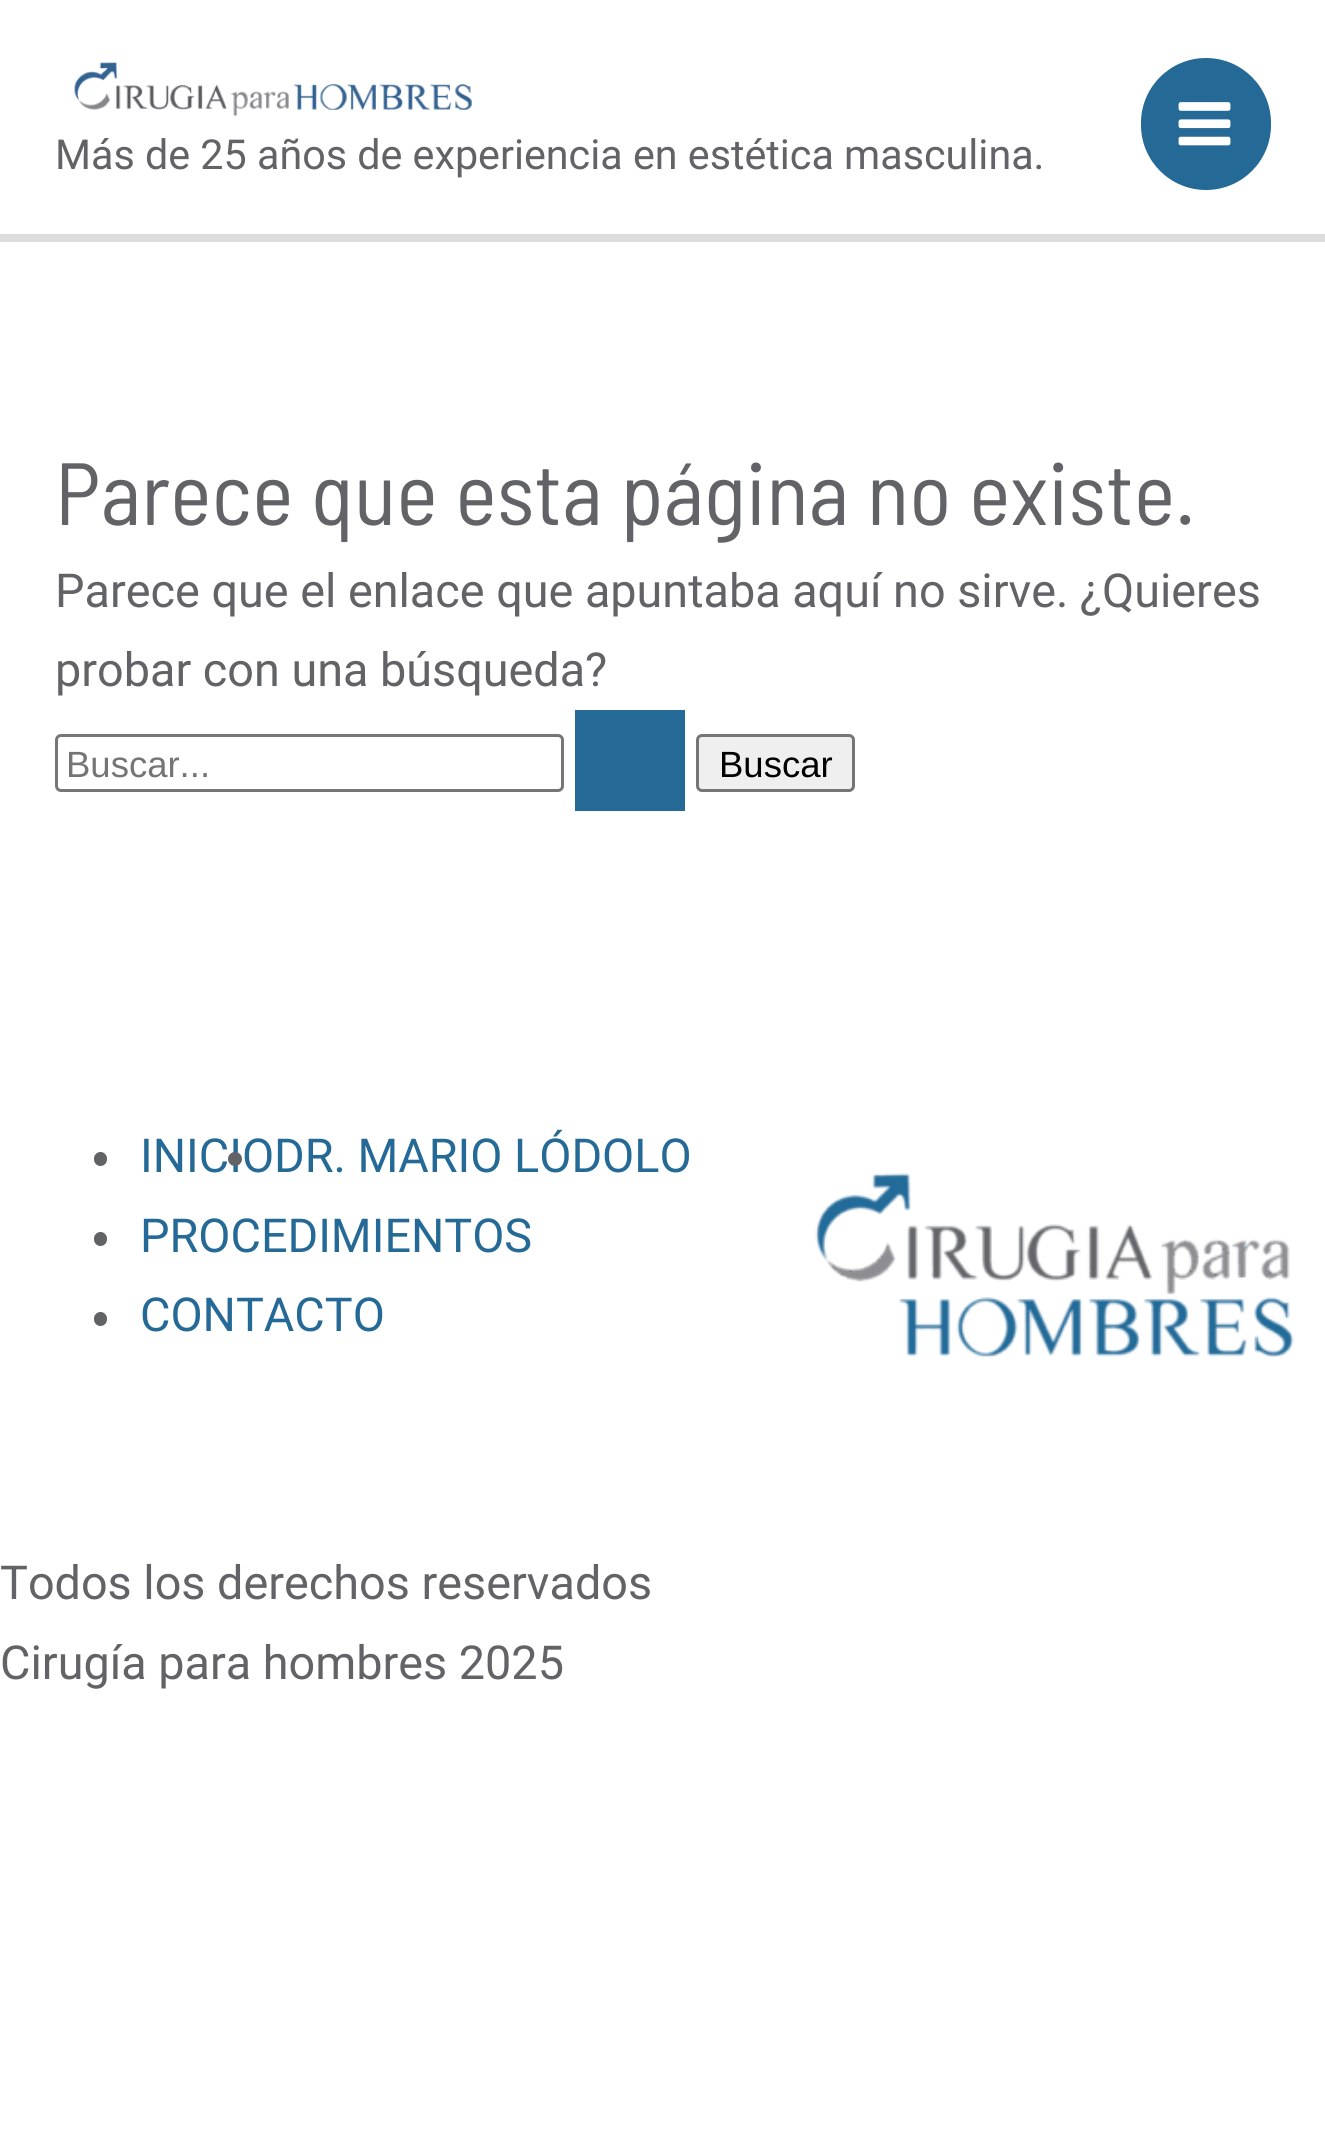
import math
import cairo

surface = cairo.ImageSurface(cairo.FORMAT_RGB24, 1325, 2138)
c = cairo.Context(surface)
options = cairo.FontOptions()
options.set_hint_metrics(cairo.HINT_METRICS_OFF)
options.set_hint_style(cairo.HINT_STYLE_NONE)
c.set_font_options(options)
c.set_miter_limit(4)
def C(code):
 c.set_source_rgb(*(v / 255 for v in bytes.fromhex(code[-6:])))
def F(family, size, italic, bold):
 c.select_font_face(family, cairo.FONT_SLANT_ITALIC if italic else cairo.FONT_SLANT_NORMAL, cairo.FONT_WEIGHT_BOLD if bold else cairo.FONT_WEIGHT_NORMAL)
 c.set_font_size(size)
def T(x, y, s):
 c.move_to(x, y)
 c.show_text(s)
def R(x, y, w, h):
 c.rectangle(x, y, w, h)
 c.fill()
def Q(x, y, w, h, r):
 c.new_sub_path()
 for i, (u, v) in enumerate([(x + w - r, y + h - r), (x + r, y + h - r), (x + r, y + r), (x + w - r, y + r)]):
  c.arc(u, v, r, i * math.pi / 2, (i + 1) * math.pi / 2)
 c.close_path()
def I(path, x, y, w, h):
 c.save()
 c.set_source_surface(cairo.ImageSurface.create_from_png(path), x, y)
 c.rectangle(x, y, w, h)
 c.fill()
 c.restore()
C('ffffff')
c.paint()
C('dddddd')
R(0,234,1325,8)
I('1.png',74,62,398,55)
F('Roboto',41.25,0,0)
C('626367')
T(55,169,'Más de 25 años de experiencia en estética masculina.')
C('256996')
Q(1141,58,130,132,65)
c.fill()
I('2.png',1178,102,53,44)
F('Barlow Semi Condensed',88,0,0)
C('626367')
T(55,525,'Parece que esta página no existe.')
F('Roboto',46.75,0,0)
T(55,607,'Parece que el enlace que apuntaba aquí no sirve. ¿Quieres')
T(55,686,'probar con una búsqueda?')
Q(56.5,735.5,506,55,4.5)
C('767676')
c.set_line_width(3)
c.stroke()
F('Liberation Sans',36.5,0,0)
C('757575')
T(66,777,'Buscar...')
C('256996')
R(575,710,110,101)
C('efefef')
Q(697.5,735.5,156,55,4.5)
c.fill_preserve()
C('767676')
c.stroke()
C('000000')
T(719,777,'Buscar')
C('626367')
Q(94,1152,13,14,6.5)
c.fill()
F('Roboto',46.75,0,0)
C('256996')
T(140,1172,'INICIODR. MARIO LÓDOLO')
C('626367')
c.new_path()
c.arc(235,1159,7,0,2 * math.pi)
c.fill()
Q(94,1232,13,14,6.5)
c.fill()
C('256996')
T(140,1252,'PROCEDIMIENTOS')
C('626367')
Q(94,1312,13,14,6.5)
c.fill()
C('256996')
T(140,1331,'CONTACTO')
I('3.png',815,1173,479,185)
C('626367')
T(0,1599,'Todos los derechos reservados')
T(0,1679,'Cirugía para hombres 2025')
surface.write_to_png('o.png')
